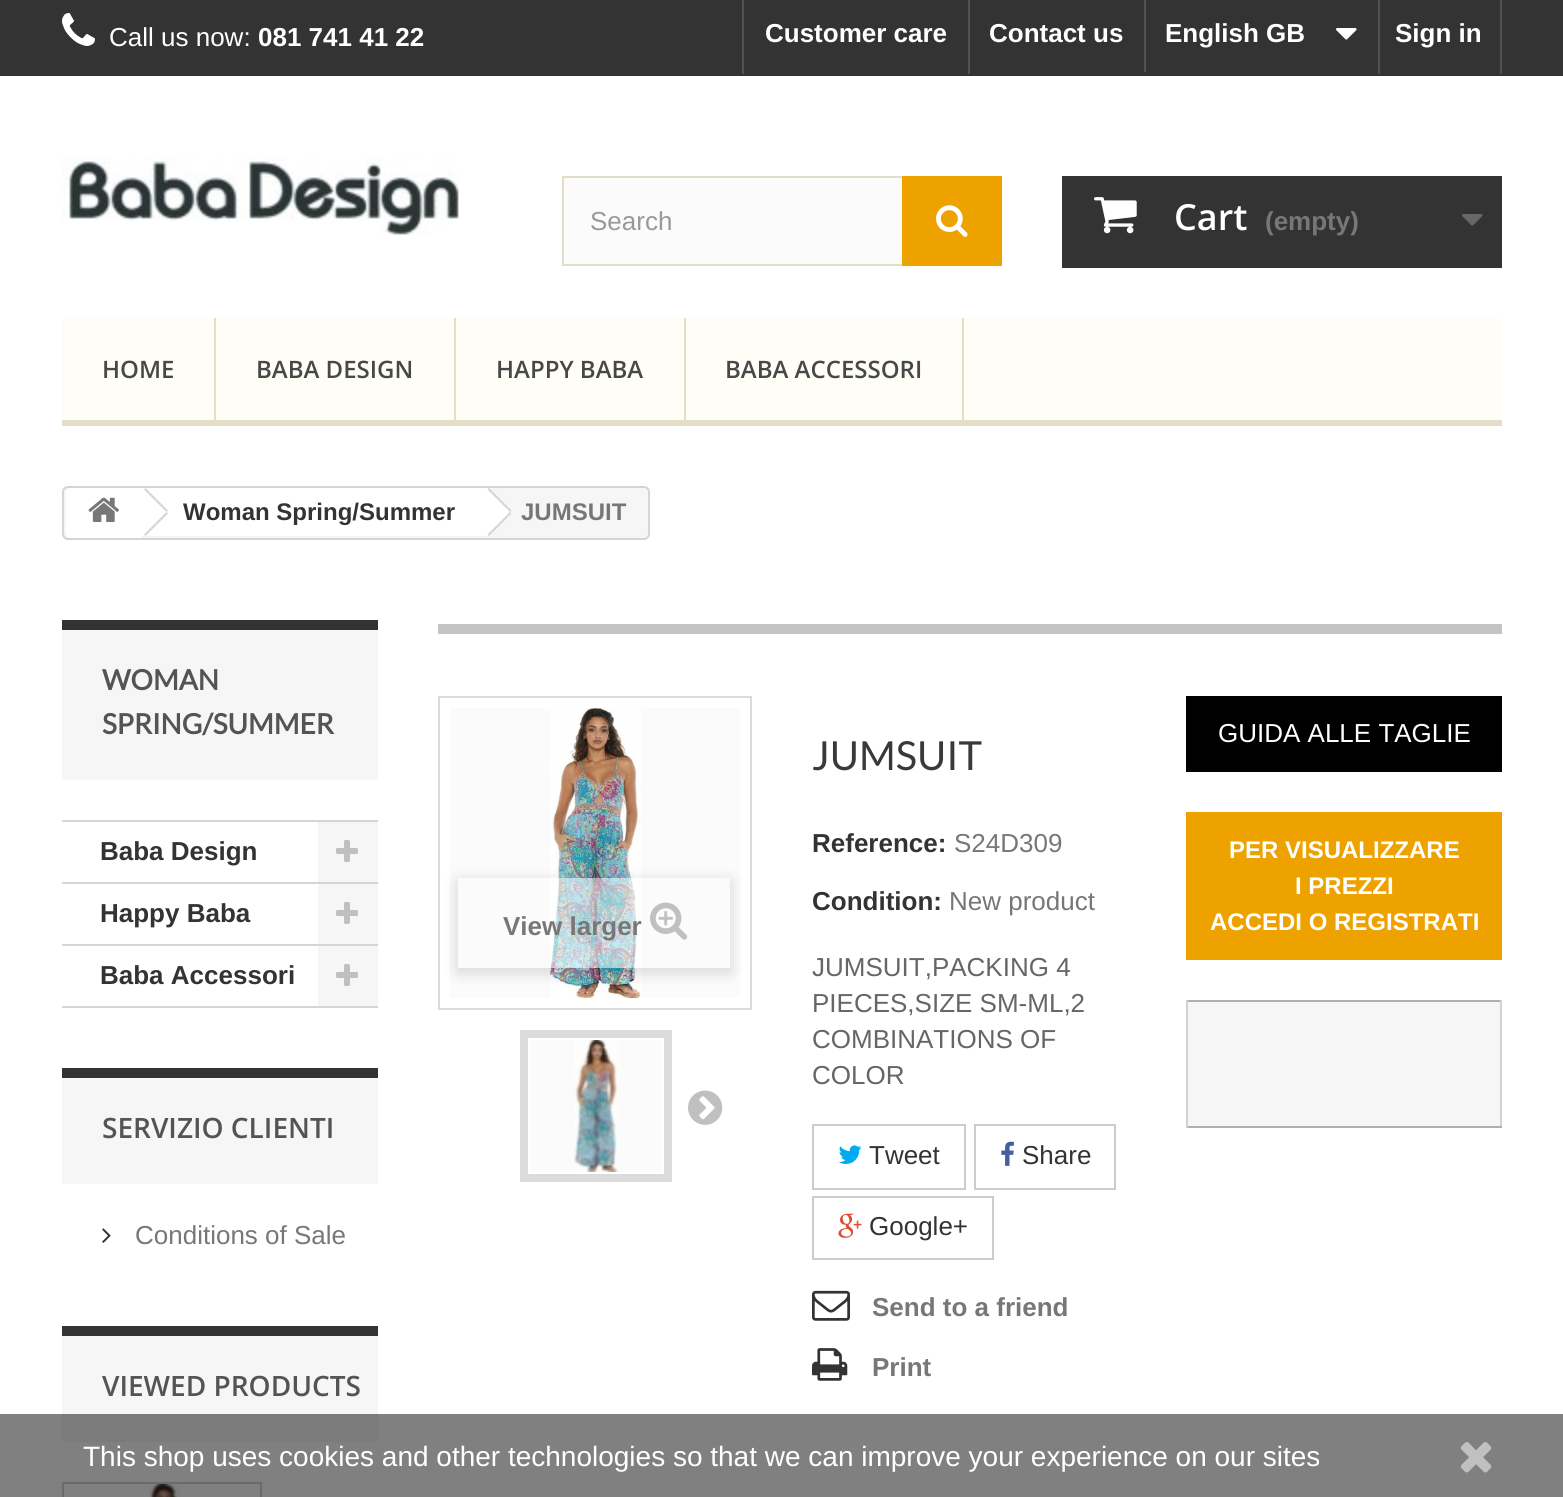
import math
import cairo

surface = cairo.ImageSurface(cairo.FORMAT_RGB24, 1563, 1497)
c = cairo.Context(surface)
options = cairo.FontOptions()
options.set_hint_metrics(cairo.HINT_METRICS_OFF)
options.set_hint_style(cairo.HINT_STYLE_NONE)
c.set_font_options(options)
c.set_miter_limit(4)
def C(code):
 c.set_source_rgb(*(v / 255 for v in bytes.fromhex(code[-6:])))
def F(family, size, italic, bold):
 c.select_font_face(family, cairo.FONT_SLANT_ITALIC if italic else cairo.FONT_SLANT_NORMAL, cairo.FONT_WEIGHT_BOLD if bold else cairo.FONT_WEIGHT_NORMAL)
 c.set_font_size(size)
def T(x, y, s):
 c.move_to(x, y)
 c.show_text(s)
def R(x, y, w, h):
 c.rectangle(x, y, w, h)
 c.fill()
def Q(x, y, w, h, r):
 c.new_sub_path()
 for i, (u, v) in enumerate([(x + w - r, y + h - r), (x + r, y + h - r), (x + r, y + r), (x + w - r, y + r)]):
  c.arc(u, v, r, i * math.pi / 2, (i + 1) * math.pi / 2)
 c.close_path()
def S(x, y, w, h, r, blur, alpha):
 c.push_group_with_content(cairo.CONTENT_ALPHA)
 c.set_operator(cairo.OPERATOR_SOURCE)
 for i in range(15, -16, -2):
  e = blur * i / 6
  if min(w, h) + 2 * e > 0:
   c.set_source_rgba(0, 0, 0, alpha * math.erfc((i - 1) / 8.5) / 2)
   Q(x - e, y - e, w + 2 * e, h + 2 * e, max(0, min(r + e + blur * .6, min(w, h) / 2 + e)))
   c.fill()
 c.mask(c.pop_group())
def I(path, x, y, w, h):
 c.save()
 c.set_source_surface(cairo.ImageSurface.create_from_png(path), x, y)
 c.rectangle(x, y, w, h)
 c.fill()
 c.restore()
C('ffffff')
c.paint()
C('333333')
R(0,0,1563,76)
I('1.png',62,13,33,33)
F('Liberation Sans',26,0,0)
C('ffffff')
T(109,46,'Call us now:')
F('Liberation Sans',26,0,1)
T(258,46,'081 741 41 22')
C('515151')
R(742,0,2,74)
C('ffffff')
T(765,42,'Customer care')
C('515151')
R(968,0,2,74)
C('ffffff')
T(989,42,'Contact us')
C('515151')
R(1144,0,2,72)
C('ffffff')
T(1165,42,'English GB')
I('2.png',1336,28,21,12)
C('515151')
R(1500,0,2,74)
R(1378,0,2,74)
C('ffffff')
T(1395,42,'Sign in')
I('3.png',62,156,398,80)
C('fbfbfb')
R(564,178,338,86)
c.rectangle(563,177,438,88)
C('e2dec8')
c.stroke()
F('Liberation Sans',26,0,0)
C('999999')
T(590,230,'Search')
C('eea200')
R(902,176,100,90)
I('4.png',936,205,32,32)
C('333333')
R(1062,176,440,92)
I('5.png',1094,197,43,37)
F('Open Sans SemiBold',36,0,0)
C('ffffff')
T(1174,230,'Cart')
F('Liberation Sans',26,0,1)
C('777777')
T(1265,230,'(empty)')
I('6.png',1462,214,21,12)
C('fffef6')
R(62,318,1440,102)
C('e2dec8')
R(62,420,1440,6)
R(214,318,2,108)
F('Open Sans SemiBold',24,0,0)
C('484848')
T(102,378,'HOME')
C('e2dec8')
R(454,318,2,108)
C('484848')
T(256,378,'BABA DESIGN')
C('e2dec8')
R(684,318,2,108)
C('484848')
T(496,378,'HAPPY BABA')
C('e2dec8')
R(962,318,2,108)
C('484848')
T(725,378,'BABA ACCESSORI')
C('808080')
R(0,1414,1563,83)
C('f6f6f6')
Q(63,487,586,52,5)
c.fill_preserve()
C('d6d4d4')
c.stroke()
C('ffffff')
c.new_path()
c.move_to(72,488)
c.line_to(142,488)
c.line_to(142,538)
c.line_to(72,538)
c.curve_to(68.5,538,66,535.5,66,532)
c.line_to(66,494)
c.curve_to(66,490.5,68.5,488,72,488)
c.close_path()
c.fill()
I('7.png',88,497,31,25)
R(142,488,344,48)
C('d6d4d4')
c.new_path()
c.move_to(145.5,488)
c.line_to(168,510.5)
c.line_to(166.5,512)
c.line_to(144,489.5)
c.close_path()
c.move_to(166.5,512)
c.line_to(168,513.5)
c.line_to(145.5,536)
c.line_to(144,534.5)
c.close_path()
c.fill()
F('Liberation Sans',24,0,1)
C('333333')
T(183,520,'Woman Spring/Summer')
C('ffffff')
c.new_path()
c.move_to(490,489)
c.line_to(510,509)
c.curve_to(512,511,512,513,510,515)
c.line_to(490,535)
c.curve_to(489,536,486,536,485,535)
c.line_to(465,515)
c.curve_to(463,513,463,511,465,509)
c.line_to(485,489)
c.curve_to(486,488,489,488,490,489)
c.close_path()
c.fill()
C('d6d4d4')
c.new_path()
c.move_to(489,488)
c.line_to(511.5,510.5)
c.line_to(510,512)
c.line_to(487.5,489.5)
c.close_path()
c.move_to(510,512)
c.line_to(511.5,513.5)
c.line_to(489,536)
c.line_to(487.5,534.5)
c.close_path()
c.fill()
C('777777')
T(521,520,'JUMSUIT')
C('f6f6f6')
R(62,630,316,150)
C('333333')
R(62,620,316,10)
F('Lato',28,0,1)
C('555454')
T(102,690,'WOMAN')
T(102,734,'SPRING/SUMMER')
C('d6d4d4')
R(62,820,316,2)
R(62,882,316,2)
F('Liberation Sans',26,0,1)
C('333333')
T(100,860,'Baba Design')
C('f6f6f6')
R(318,822,60,60)
I('8.png',336,840,22,22)
C('d6d4d4')
R(62,944,316,2)
C('333333')
T(100,922,'Happy Baba')
C('f6f6f6')
R(318,884,60,60)
I('8.png',336,902,22,22)
C('d6d4d4')
R(62,1006,316,2)
C('333333')
T(100,984,'Baba Accessori')
C('f6f6f6')
R(318,946,60,60)
I('8.png',336,964,22,22)
R(62,1078,316,106)
C('333333')
R(62,1068,316,10)
F('Open Sans SemiBold',28,0,0)
C('555454')
T(102,1138,'SERVIZIO CLIENTI')
I('9.png',102,1228,9,15)
F('Liberation Sans',26,0,0)
C('777777')
T(135,1244,'Conditions of Sale')
C('f6f6f6')
R(62,1336,316,78)
C('7b7b7b')
R(62,1414,316,28)
C('333333')
R(62,1326,316,10)
F('Open Sans SemiBold',28,0,0)
C('555454')
T(102,1396,'VIEWED PRODUCTS')
c.rectangle(63,1483,198,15)
C('6b6a6a')
c.stroke()
I('10.png',149,1484,32,13)
C('c4c4c4')
R(438,624,1064,10)
c.rectangle(439,697,312,312)
C('dbdbdb')
c.stroke()
C('fbfbfb')
R(450,708,290,290)
I('11.png',550,708,91,290)
c.save()
c.set_fill_rule(cairo.FILL_RULE_EVEN_ODD)
c.new_path()
c.move_to(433,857)
c.line_to(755,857)
c.line_to(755,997)
c.line_to(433,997)
c.close_path()
c.move_to(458,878)
c.line_to(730,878)
c.line_to(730,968)
c.line_to(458,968)
c.close_path()
c.clip()
C('000000')
S(458,882,272,90,0,8,.16)
c.restore()
c.set_source_rgba(1,1,1,0.5)
R(550,878,88,90)
F('Liberation Sans',26,0,1)
C('777777')
T(503,935,'View larger')
I('12.png',650,902,38,38)
c.rectangle(521,1031,150,150)
C('dbdbdb')
c.stroke()
C('fbfbfb')
R(530,1040,132,132)
c.rectangle(525,1035,142,142)
C('dbdbdb')
c.set_line_width(6)
c.stroke()
I('13.png',574,1040,45,132)
I('14.png',688,1090,35,35)
F('Lato',40,0,0)
C('3a3939')
T(812,770,'JUMSUIT')
F('Liberation Sans',26,0,1)
C('333333')
T(812,852,'Reference:')
F('Liberation Sans',26,0,0)
C('777777')
T(954,852,'S24D309')
F('Liberation Sans',26,0,1)
C('333333')
T(812,910,'Condition:')
F('Liberation Sans',26,0,0)
C('777777')
T(949,910,'New product')
C('666666')
T(812,976,'JUMSUIT,PACKING 4')
T(812,1012,'PIECES,SIZE SM-ML,2')
T(812,1048,'COMBINATIONS OF')
T(812,1084,'COLOR')
c.rectangle(813,1125,152,64)
C('cccccc')
c.set_line_width(2)
c.stroke()
I('15.png',838,1145,24,19)
C('333333')
T(869,1164,'Tweet')
c.rectangle(975,1125,140,64)
C('cccccc')
c.stroke()
I('16.png',1001,1141,13,25)
C('333333')
T(1022,1164,'Share')
c.rectangle(813,1197,180,62)
C('cccccc')
c.stroke()
I('17.png',838,1213,24,25)
C('333333')
T(869,1235,'Google+')
I('18.png',812,1290,38,31)
F('Liberation Sans',26,0,1)
C('777777')
T(872,1316,'Send to a friend')
I('19.png',812,1348,36,33)
T(872,1376,'Print')
C('000000')
R(1186,696,316,76)
F('Liberation Sans',26,0,0)
C('ffffff')
T(1218,742,'GUIDA ALLE TAGLIE')
C('eea200')
R(1186,812,316,148)
F('Liberation Sans',24,0,1)
C('ffffff')
T(1229,858,'PER VISUALIZZARE')
T(1295,894,'I PREZZI')
T(1210,930,'ACCEDI O REGISTRATI')
C('f6f6f6')
R(1188,1002,312,124)
C('b0afaf')
R(1186,1000,316,2)
C('d2d0d0')
R(1500,1000,2,128)
C('b0afaf')
R(1186,1126,316,2)
C('d2d0d0')
R(1186,1000,2,128)
F('Liberation Sans',28,0,0)
C('ffffff')
T(83,1466,'This shop uses cookies and other technologies so that we can improve your experience on our sites')
I('20.png',1460,1442,32,31)
surface.write_to_png('o.png')
